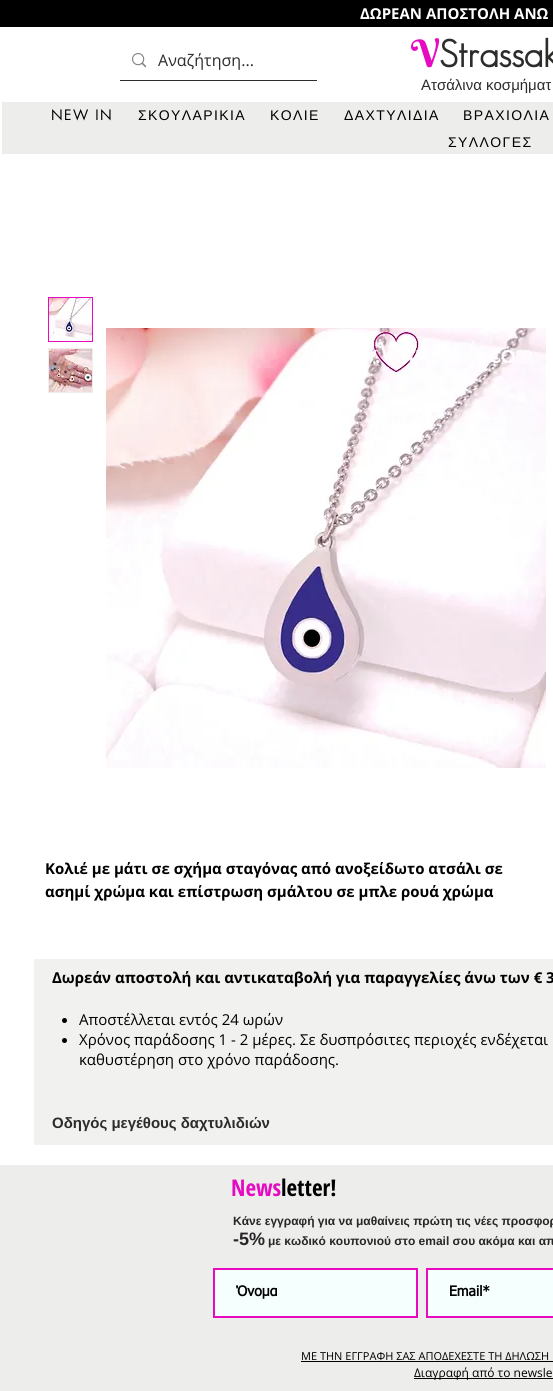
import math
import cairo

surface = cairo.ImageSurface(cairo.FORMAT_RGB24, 553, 1391)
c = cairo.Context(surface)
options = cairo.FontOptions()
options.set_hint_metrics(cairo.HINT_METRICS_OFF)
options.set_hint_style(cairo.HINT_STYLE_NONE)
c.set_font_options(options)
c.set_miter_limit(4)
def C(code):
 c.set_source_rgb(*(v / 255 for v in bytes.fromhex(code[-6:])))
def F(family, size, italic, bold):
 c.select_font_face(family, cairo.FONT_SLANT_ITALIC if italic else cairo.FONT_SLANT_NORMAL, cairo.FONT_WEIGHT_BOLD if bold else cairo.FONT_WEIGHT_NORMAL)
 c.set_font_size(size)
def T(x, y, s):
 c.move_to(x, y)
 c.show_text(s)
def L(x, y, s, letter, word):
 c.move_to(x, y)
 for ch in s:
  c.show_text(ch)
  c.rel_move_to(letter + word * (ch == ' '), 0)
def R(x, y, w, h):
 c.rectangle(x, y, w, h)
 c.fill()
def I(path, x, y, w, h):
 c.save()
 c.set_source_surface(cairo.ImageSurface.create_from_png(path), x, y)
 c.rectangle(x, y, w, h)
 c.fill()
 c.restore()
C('ffffff')
c.paint()
C('000000')
R(0,0,553,27)
F('Open Sans',15,0,1)
C('ffffff')
T(360,19,'ΔΩΡΕΑΝ ΑΠΟΣΤΟΛΗ ΑΝΩ')
C('2c2c2b')
R(120,80,197,1)
I('1.png',132,53,14,15)
F('Open Sans',16,0,0)
T(158,66,'Αναζήτηση...')
F('Berkshire Swash',38,0,0)
C('e60bc1')
T(411,67,'V')
F('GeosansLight',38,0,1)
C('2c2c2b')
T(439,67,'Strassak')
F('Liberation Sans',15,0,0)
T(421,90,'Ατσάλινα κοσμήματ')
C('ededec')
R(2,102,551,52)
F('futura',14,0,0)
C('000000')
L(51,120,'NEW IN',1.4,0)
F('Liberation Sans',14,0,0)
L(138,120,'ΣΚΟΥΛΑΡΙΚΙΑ',1.4,0)
L(270,120,'ΚΟΛΙΕ',1.4,0)
L(344,120,'ΔΑΧΤΥΛΙΔΙΑ',1.4,0)
L(463,120,'ΒΡΑΧΙΟΛΙΑ',1.4,0)
L(448,147,'ΣΥΛΛΟΓΕΣ',1.4,0)
c.rectangle(48.5,297.5,44,44)
C('e60bc1')
c.set_line_width(1)
c.stroke()
I('2.png',49,298,43,43)
C('ededec')
R(48,348,45,45)
I('3.png',49,349,43,43)
I('4.png',106,328,440,440)
F('Open Sans',15,0,1)
C('000000')
T(45,874,'Κολιέ με μάτι σε σχήμα σταγόνας από ανοξείδωτο ατσάλι σε')
T(45,897,'ασημί χρώμα και επίστρωση σμάλτου σε μπλε ρουά χρώμα')
C('f1f1f0')
R(34,959,519,186)
C('000000')
T(52,983,'Δωρεάν αποστολή και αντικαταβολή για παραγγελίες άνω των € 3')
c.new_path()
c.arc(64.5,1020.5,2.5,0,2 * math.pi)
c.fill()
F('Open Sans',15,0,0)
T(79,1025,'Αποστέλλεται εντός 24 ωρών')
c.new_path()
c.arc(64.5,1040.5,2.5,0,2 * math.pi)
c.fill()
T(79,1045,'Χρόνος παράδοσης 1 - 2 μέρες. Σε δυσπρόσιτες περιοχές ενδέχεται')
T(79,1065,'καθυστέρηση στο χρόνο παράδοσης.')
F('Liberation Sans',15,0,1)
C('2c2c2b')
T(52,1128,'Οδηγός μεγέθους δαχτυλιδιών')
C('ededec')
R(0,1165,553,226)
F('Open Sans Condensed',23,0,1)
C('e60bc1')
T(231,1196,'News')
C('000000')
T(281,1196,'letter!')
F('Liberation Sans',12,0,1)
C('282626')
T(233,1225,'Κάνε εγγραφή για να μαθαίνεις πρώτη τις νέες προσφορ')
F('Liberation Sans',18,0,1)
T(233,1245,'-5%')
F('Liberation Sans',12,0,1)
T(268,1245,'με κωδικό κουπονιού στο email σου ακόμα και απ')
C('f5fffe')
c.rectangle(214,1269,203,48)
c.fill_preserve()
C('e60bc1')
c.set_line_width(2)
c.stroke()
F('tahoma',14,0,1)
C('000000')
T(236,1296,'Όνομα')
C('f5fffe')
c.rectangle(427,1269,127,48)
c.fill_preserve()
C('e60bc1')
c.stroke()
C('000000')
T(449,1296,'Email*')
F('Open Sans',11,0,0)
T(301,1360,'ΜΕ ΤΗΝ ΕΓΓΡΑΦΗ ΣΑΣ ΑΠΟΔΕΧΕΣΤΕ ΤΗ ΔΗΛΩΣΗ')
R(301,1361,252,1)
R(414,1378,139,1)
F('Open Sans',12,0,0)
T(414,1377,'Διαγραφή από το newsle')
surface.write_to_png('o.png')
